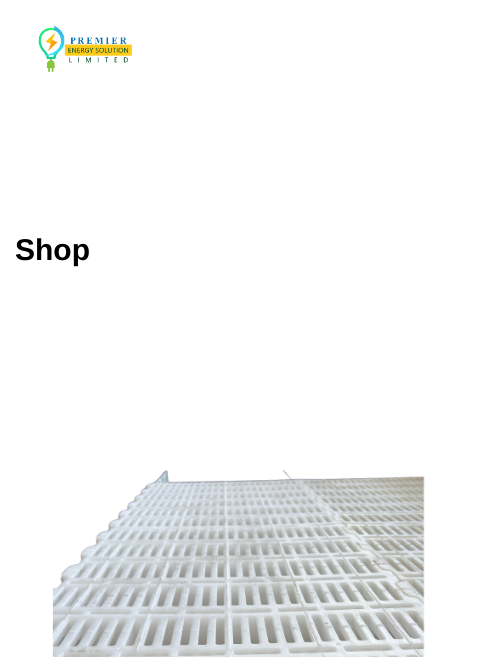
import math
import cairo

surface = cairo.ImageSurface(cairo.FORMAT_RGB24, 485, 657)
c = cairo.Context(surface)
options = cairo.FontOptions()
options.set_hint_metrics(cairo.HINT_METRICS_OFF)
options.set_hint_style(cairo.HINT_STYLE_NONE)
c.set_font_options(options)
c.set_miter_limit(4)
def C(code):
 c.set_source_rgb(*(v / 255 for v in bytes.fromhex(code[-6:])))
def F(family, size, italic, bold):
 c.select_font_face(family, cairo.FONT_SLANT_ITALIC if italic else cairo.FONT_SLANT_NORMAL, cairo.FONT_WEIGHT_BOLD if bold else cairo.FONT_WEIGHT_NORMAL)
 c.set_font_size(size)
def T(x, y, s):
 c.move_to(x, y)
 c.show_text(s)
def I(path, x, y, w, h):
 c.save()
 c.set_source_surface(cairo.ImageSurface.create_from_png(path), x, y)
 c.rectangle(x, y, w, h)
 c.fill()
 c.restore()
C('ffffff')
c.paint()
I('1.png',38,25,94,47)
F('Liberation Sans',30,0,1)
C('000000')
T(15,260,'Shop')
I('2.png',52,469,373,188)
surface.write_to_png('o.png')
